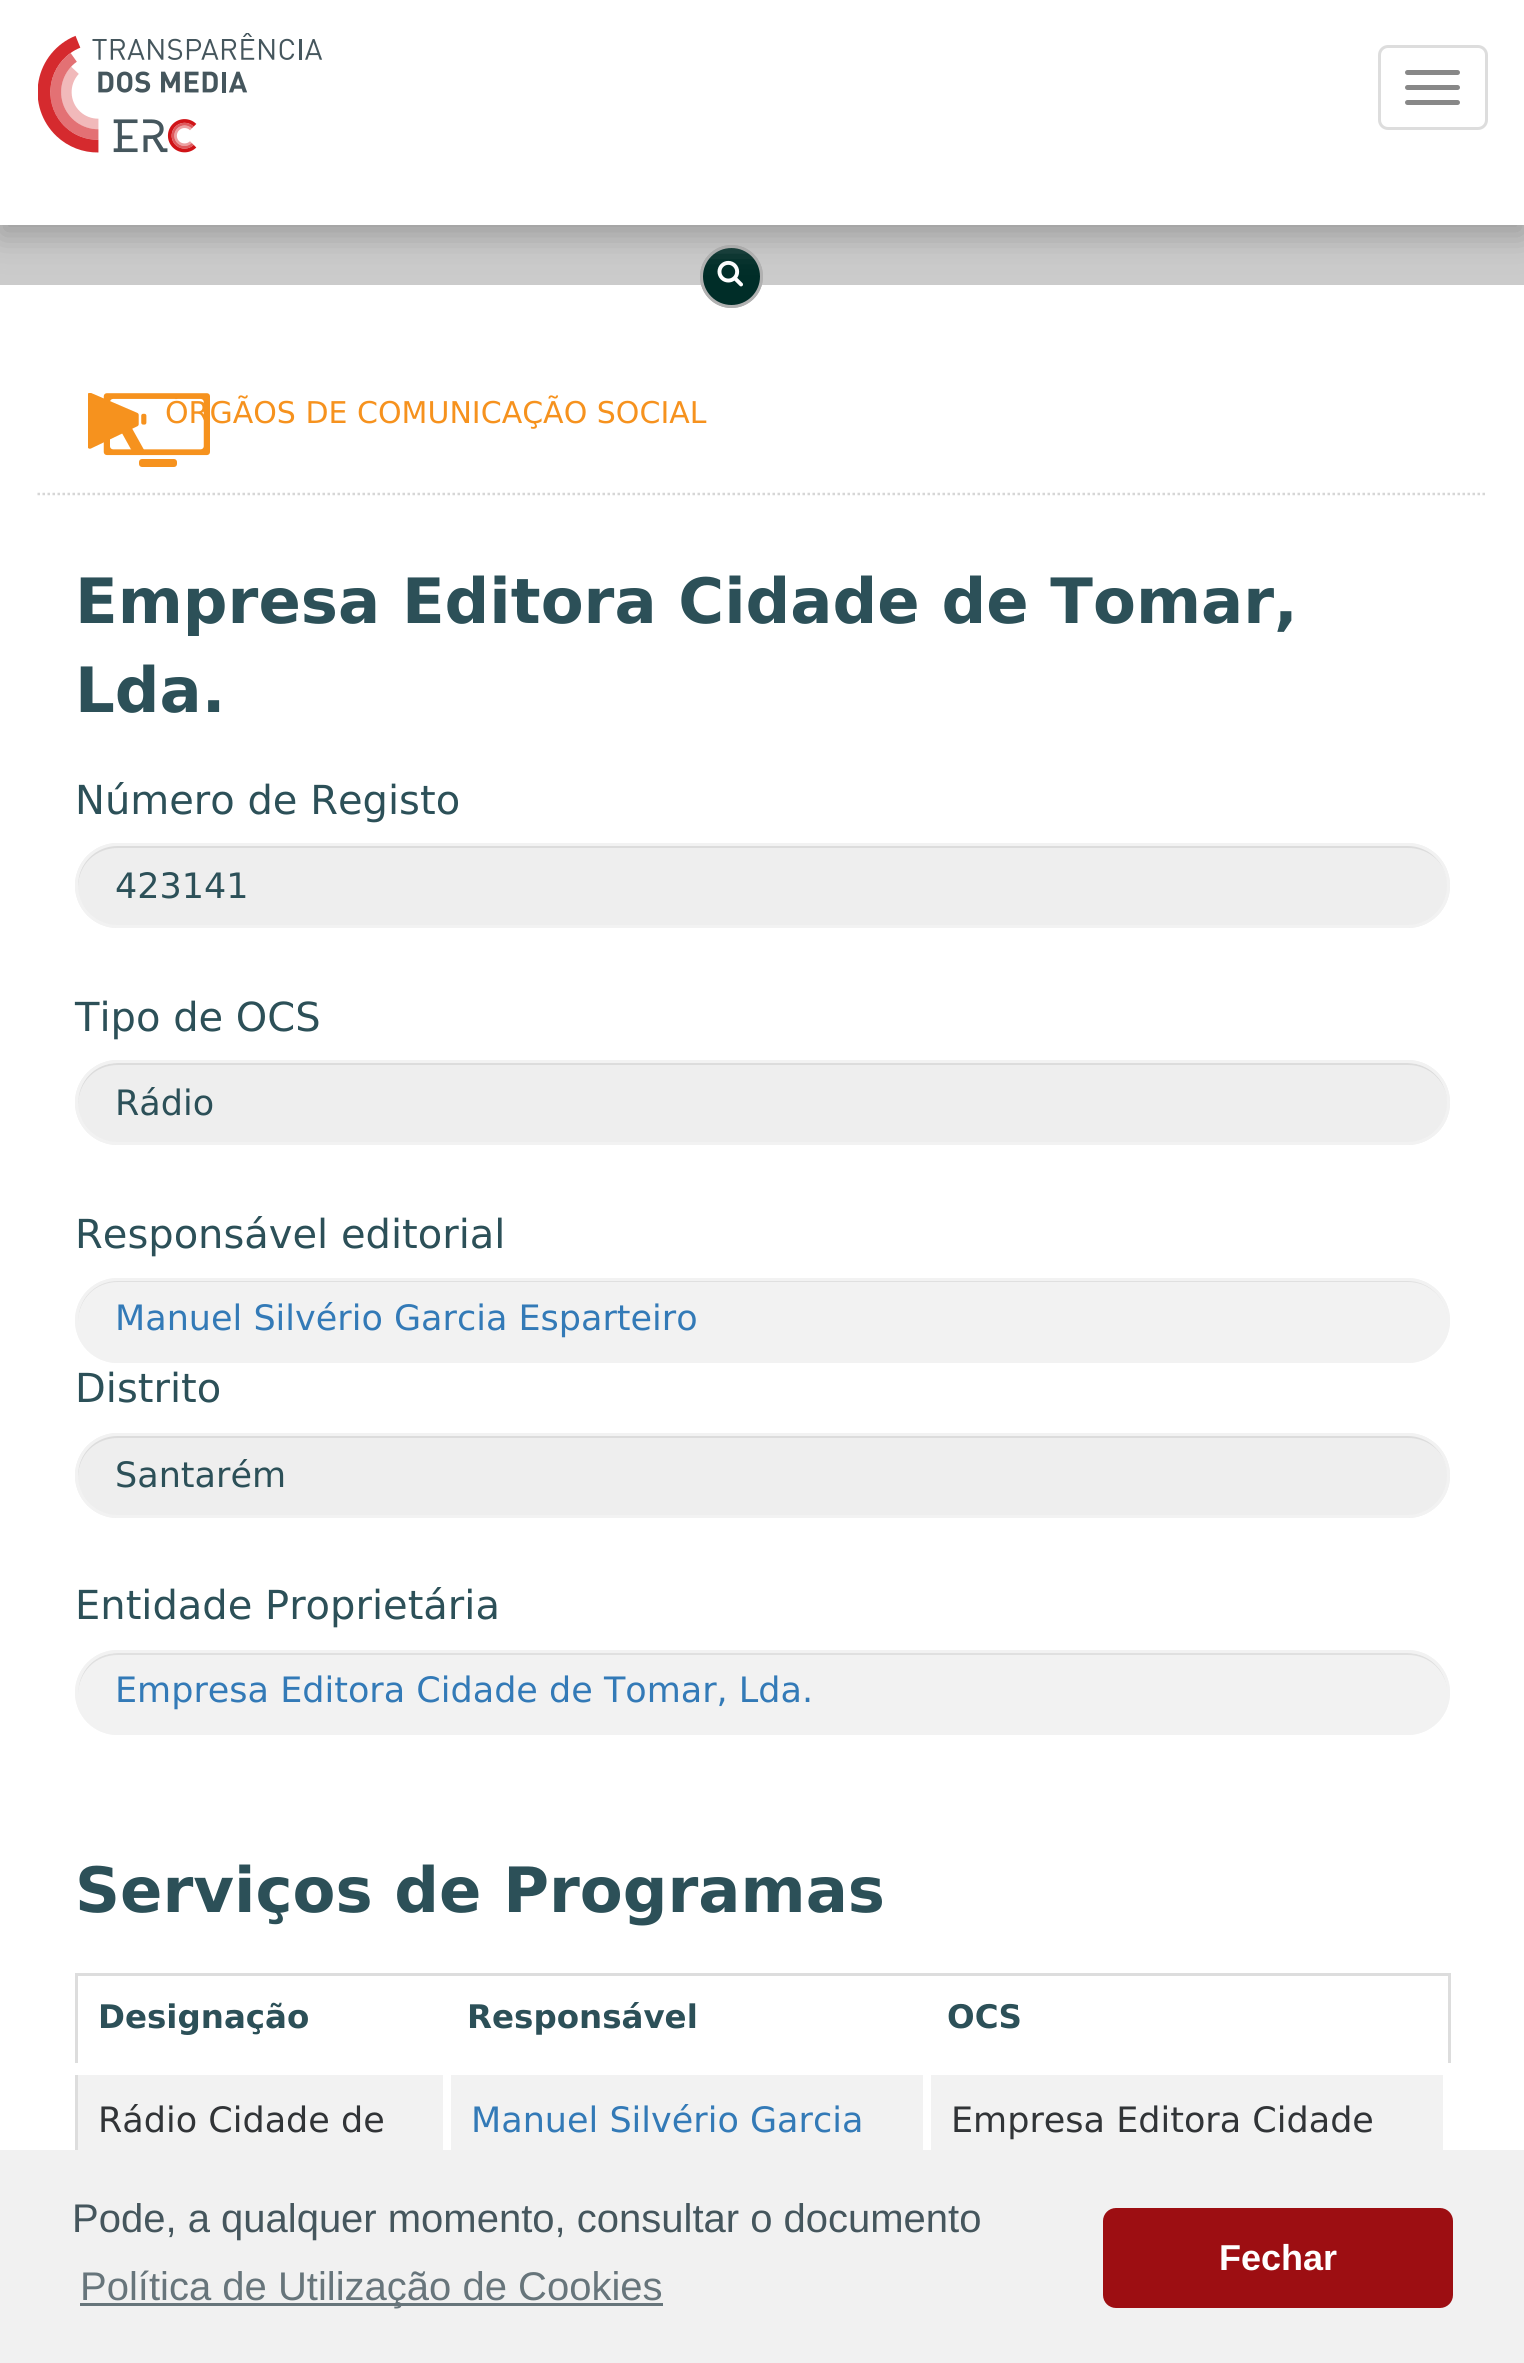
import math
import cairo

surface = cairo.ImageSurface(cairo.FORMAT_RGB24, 1524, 2363)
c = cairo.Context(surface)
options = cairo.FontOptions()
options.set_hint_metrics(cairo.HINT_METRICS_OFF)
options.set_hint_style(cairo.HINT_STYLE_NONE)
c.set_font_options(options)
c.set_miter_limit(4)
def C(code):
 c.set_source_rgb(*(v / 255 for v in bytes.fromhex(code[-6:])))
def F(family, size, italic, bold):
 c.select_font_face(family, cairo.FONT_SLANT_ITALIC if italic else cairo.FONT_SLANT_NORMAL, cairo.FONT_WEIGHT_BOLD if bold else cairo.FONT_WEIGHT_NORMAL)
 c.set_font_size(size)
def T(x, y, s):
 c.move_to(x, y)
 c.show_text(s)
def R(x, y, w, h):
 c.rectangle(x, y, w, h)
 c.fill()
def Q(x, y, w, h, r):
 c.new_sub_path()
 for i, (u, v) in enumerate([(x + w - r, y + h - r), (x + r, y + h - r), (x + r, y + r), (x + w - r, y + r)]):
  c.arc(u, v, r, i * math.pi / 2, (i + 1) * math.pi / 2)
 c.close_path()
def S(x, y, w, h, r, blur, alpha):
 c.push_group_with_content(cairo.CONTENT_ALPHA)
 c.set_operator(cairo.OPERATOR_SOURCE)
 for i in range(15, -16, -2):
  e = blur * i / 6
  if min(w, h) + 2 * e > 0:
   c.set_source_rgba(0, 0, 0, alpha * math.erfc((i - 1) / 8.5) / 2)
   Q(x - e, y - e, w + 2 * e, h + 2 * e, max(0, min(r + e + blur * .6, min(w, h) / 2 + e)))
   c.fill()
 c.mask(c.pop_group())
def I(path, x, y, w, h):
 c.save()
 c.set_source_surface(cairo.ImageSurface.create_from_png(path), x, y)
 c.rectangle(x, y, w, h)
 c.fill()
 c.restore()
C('ffffff')
c.paint()
C('cbcbcb')
R(0,225,1524,60)
c.arc(731.5,276.5,30,0,2 * math.pi)
C('b1b1b1')
c.set_line_width(3)
c.stroke()
C('002d28')
c.arc(731.5,276.5,30,0,2 * math.pi)
c.fill_preserve()
C('b1b1b1')
c.stroke()
I('2.png',717,260,26,27)
C('999999')
S(0,10,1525,225,0,16,1)
C('ffffff')
R(0,0,1524,225)
I('1.png',38,33,285,120)
Q(1379.5,46.5,107,82,8.5)
C('dddddd')
c.stroke()
C('888888')
Q(1405,70,55,5,2.5)
c.fill()
Q(1405,85,55,5,2.5)
c.fill()
Q(1405,100,55,5,2.5)
c.fill()
c.new_path()
c.move_to(37.5,494)
c.line_to(1487.5,494)
C('d6d6d6')
c.set_line_width(2.5)
c.set_dash([2.5,2.5])
c.stroke()
I('3.png',88,393,122,74)
F('DejaVu Sans',30,0,0)
C('f6921e')
T(165,423,'ÓRGÃOS DE COMUNICAÇÃO SOCIAL')
F('DejaVu Sans',62.5,0,1)
C('2c5058')
T(75,623,'Empresa Editora Cidade de Tomar,')
T(75,712,'Lda.')
F('DejaVu Sans',40,0,0)
T(75,814,'Número de Registo')
C('eeeeee')
Q(75,843,1375,85,42.5)
c.fill()
C('dcdcdc')
c.new_path()
c.move_to(118,848)
c.line_to(1408,848)
c.curve_to(1430,848,1447,864,1448,886)
c.curve_to(1449,864,1430,845,1408,845)
c.line_to(118,845)
c.curve_to(113,845,107,846,102,848)
c.curve_to(87,855,77,870,78,886)
c.curve_to(79,864,96,848,118,848)
c.close_path()
c.fill()
Q(76.5,844.5,1372,82,41)
C('f2f2f2')
c.set_line_width(3)
c.set_dash([])
c.stroke()
F('DejaVu Sans',35,0,0)
C('2c5058')
T(115,898,'423141')
F('DejaVu Sans',40,0,0)
T(75,1031,'Tipo de OCS')
C('eeeeee')
Q(75,1060,1375,85,42.5)
c.fill()
C('dcdcdc')
c.new_path()
c.move_to(118,1065)
c.line_to(1408,1065)
c.curve_to(1430,1065,1447,1082,1448,1104)
c.curve_to(1449,1082,1430,1063,1408,1063)
c.line_to(118,1063)
c.curve_to(113,1063,107,1064,102,1066)
c.curve_to(87,1072,78,1088,78,1104)
c.curve_to(79,1082,95,1065,118,1065)
c.close_path()
c.fill()
Q(76.5,1061.5,1372,82,41)
C('f2f2f2')
c.stroke()
F('DejaVu Sans',35,0,0)
C('2c5058')
T(115,1115,'Rádio')
F('DejaVu Sans',40,0,0)
T(75,1248,'Responsável editorial')
C('f2f2f2')
Q(75,1278,1375,85,42.5)
c.fill()
C('e0e0e0')
c.new_path()
c.move_to(118,1282)
c.line_to(1408,1282)
c.curve_to(1430,1282,1447,1299,1448,1321)
c.curve_to(1449,1299,1430,1280,1408,1280)
c.line_to(118,1280)
c.curve_to(113,1280,107,1281,102,1283)
c.curve_to(87,1289,78,1305,78,1321)
c.curve_to(79,1299,95,1282,118,1282)
c.close_path()
c.fill()
Q(76.5,1279.5,1372,82,41)
C('f2f2f2')
c.stroke()
F('DejaVu Sans',35,0,0)
C('337ab7')
T(115,1330,'Manuel Silvério Garcia Esparteiro')
F('DejaVu Sans',40,0,0)
C('2c5058')
T(75,1402,'Distrito')
C('eeeeee')
Q(75,1433,1375,85,42.5)
c.fill()
C('dcdcdc')
c.new_path()
c.move_to(118,1438)
c.line_to(1408,1438)
c.curve_to(1430,1438,1447,1454,1448,1476)
c.curve_to(1449,1454,1430,1435,1408,1435)
c.line_to(118,1435)
c.curve_to(113,1435,107,1436,102,1438)
c.curve_to(87,1445,77,1460,78,1476)
c.curve_to(79,1454,96,1438,118,1438)
c.close_path()
c.fill()
Q(76.5,1434.5,1372,82,41)
C('f2f2f2')
c.stroke()
F('DejaVu Sans',35,0,0)
C('2c5058')
T(115,1487,'Santarém')
F('DejaVu Sans',40,0,0)
T(75,1619,'Entidade Proprietária')
C('f2f2f2')
Q(75,1650,1375,85,42.5)
c.fill()
C('e0e0e0')
c.new_path()
c.move_to(118,1655)
c.line_to(1408,1655)
c.curve_to(1430,1655,1447,1672,1448,1694)
c.curve_to(1449,1672,1430,1653,1408,1653)
c.line_to(118,1653)
c.curve_to(113,1653,107,1654,102,1656)
c.curve_to(87,1662,78,1678,78,1694)
c.curve_to(79,1672,95,1655,118,1655)
c.close_path()
c.fill()
Q(76.5,1651.5,1372,82,41)
C('f2f2f2')
c.stroke()
F('DejaVu Sans',35,0,0)
C('337ab7')
T(115,1702,'Empresa Editora Cidade de Tomar, Lda.')
F('DejaVu Sans',62.5,0,1)
C('2c5058')
T(75,1912,'Serviços de Programas')
C('dddddd')
R(75,1973,1375,3)
R(1448,1973,3,90)
R(75,1973,3,177)
F('DejaVu Sans',32.5,0,1)
C('2c5058')
T(98,2028,'Designação')
T(467,2028,'Responsável')
T(947,2028,'OCS')
C('f2f2f2')
R(78,2075,1365,75)
C('ffffff')
R(75,2063,3,12)
R(443,2075,8,75)
F('DejaVu Sans',35,0,0)
C('313437')
T(98,2132,'Rádio Cidade de')
C('ffffff')
R(923,2075,8,75)
C('337ab7')
T(471,2132,'Manuel Silvério Garcia')
C('313437')
T(951,2132,'Empresa Editora Cidade')
C('f1f1f1')
R(0,2150,1524,213)
F('Liberation Sans',40,0,0)
C('45565d')
T(72,2232,'Pode, a qualquer momento, consultar o documento')
C('67757b')
R(80,2303,583,3)
T(80,2300,'Política de Utilização de Cookies')
C('9d0e12')
Q(1103,2208,350,100,13)
c.fill()
F('Liberation Sans',36,0,1)
C('ffffff')
T(1219,2270,'Fechar')
surface.write_to_png('o.png')
